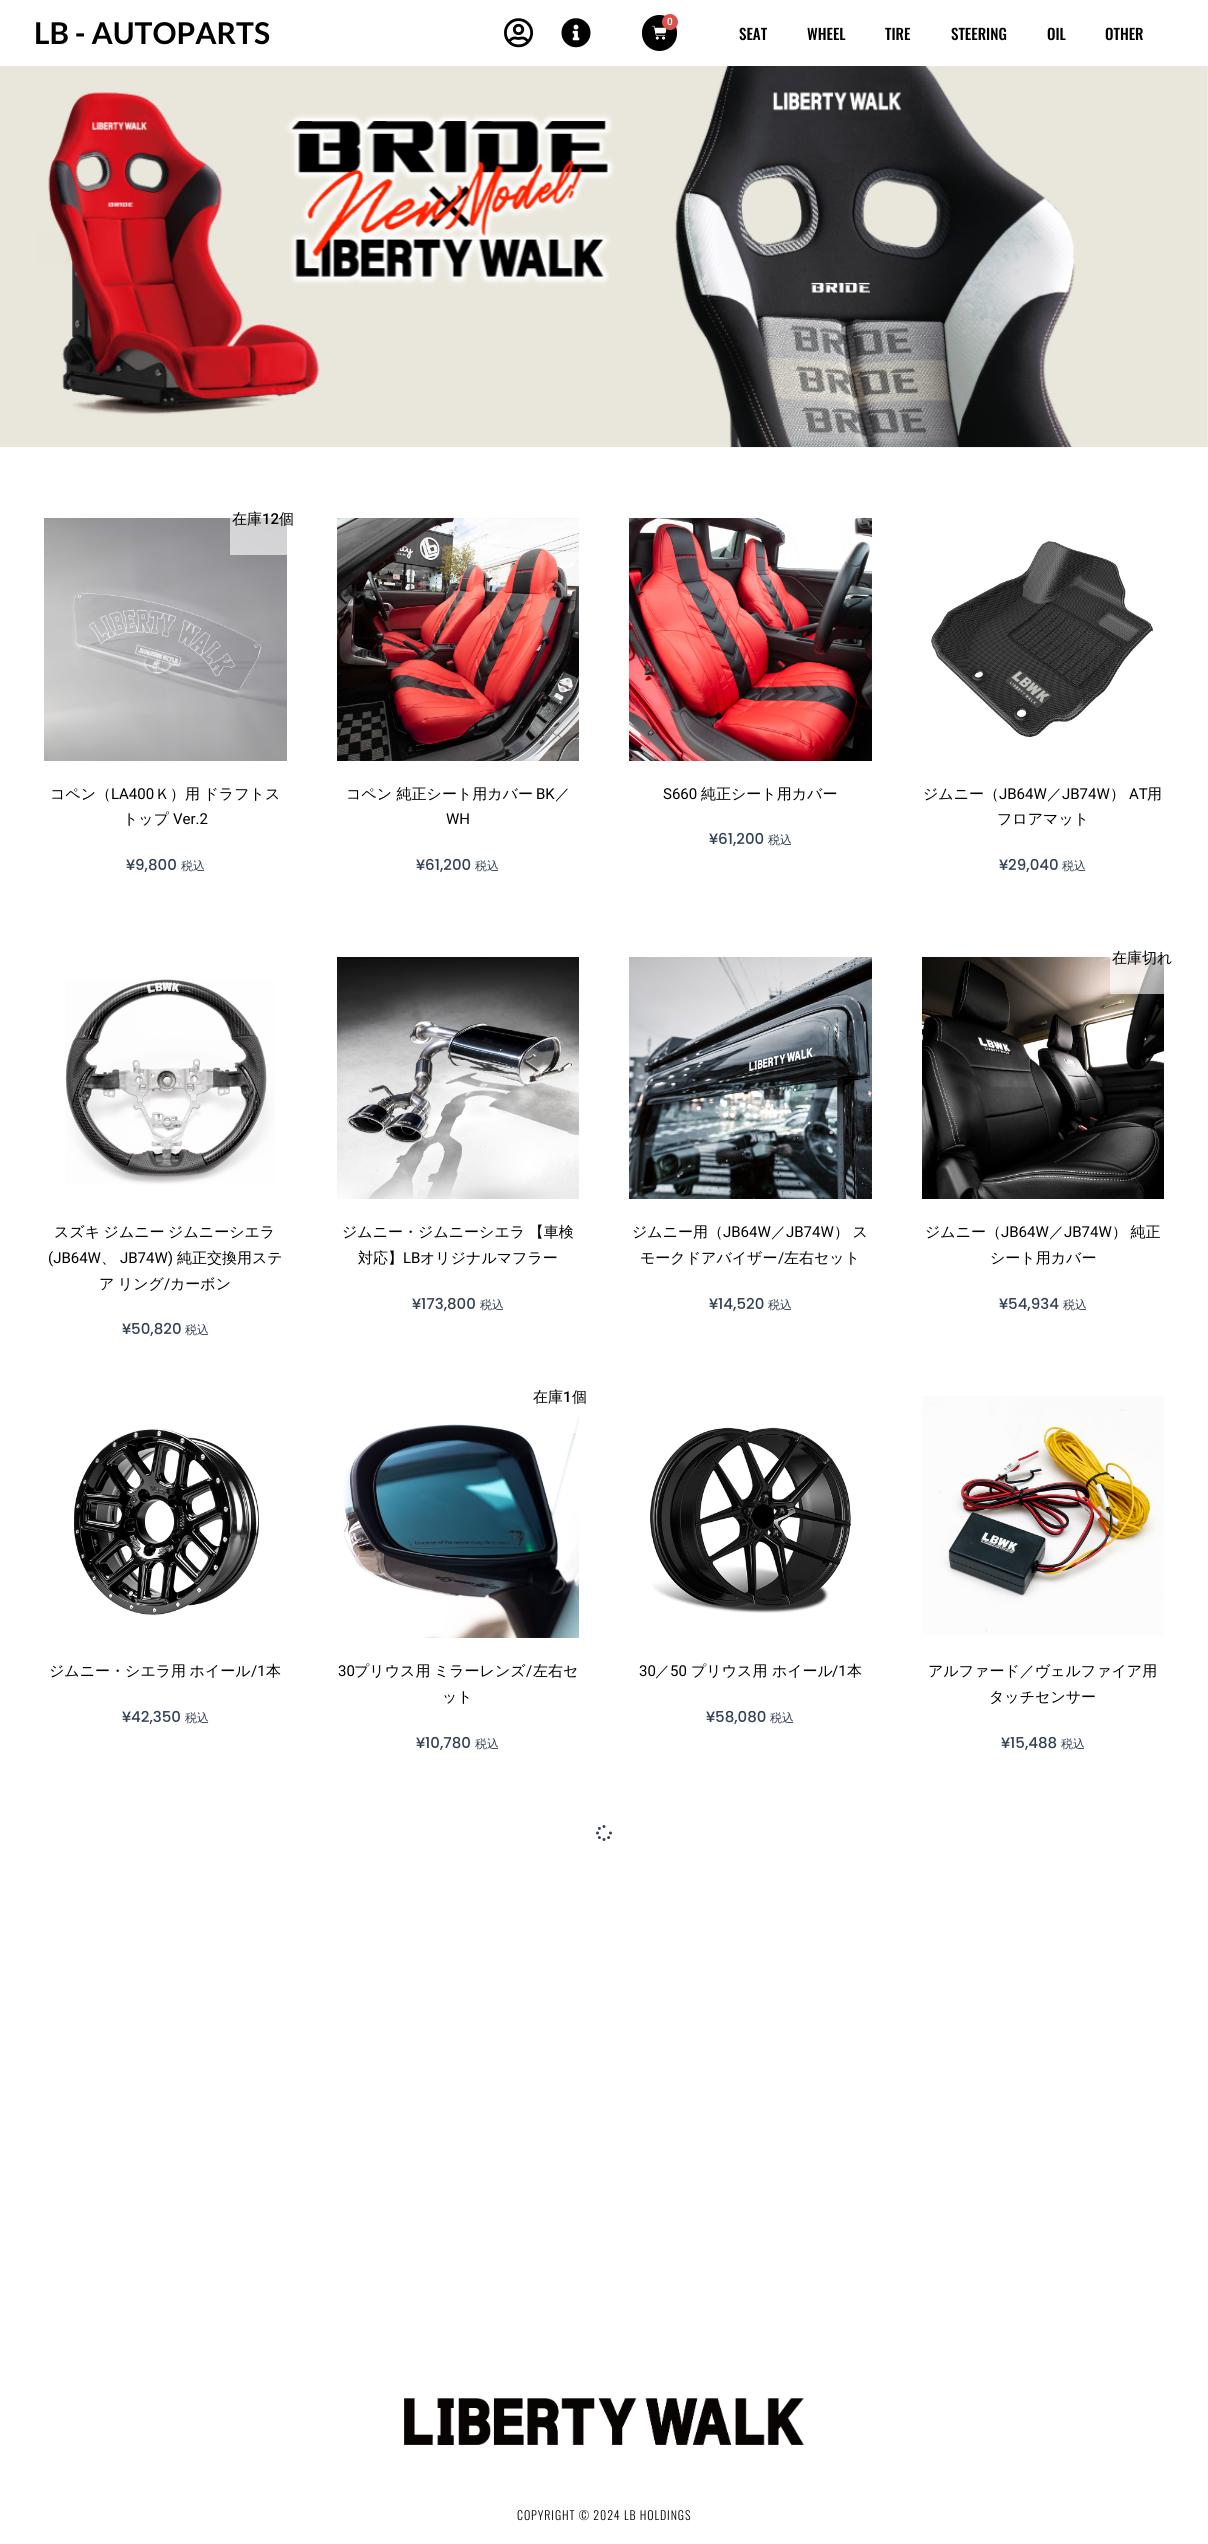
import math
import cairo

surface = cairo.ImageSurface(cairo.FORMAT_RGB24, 1208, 2544)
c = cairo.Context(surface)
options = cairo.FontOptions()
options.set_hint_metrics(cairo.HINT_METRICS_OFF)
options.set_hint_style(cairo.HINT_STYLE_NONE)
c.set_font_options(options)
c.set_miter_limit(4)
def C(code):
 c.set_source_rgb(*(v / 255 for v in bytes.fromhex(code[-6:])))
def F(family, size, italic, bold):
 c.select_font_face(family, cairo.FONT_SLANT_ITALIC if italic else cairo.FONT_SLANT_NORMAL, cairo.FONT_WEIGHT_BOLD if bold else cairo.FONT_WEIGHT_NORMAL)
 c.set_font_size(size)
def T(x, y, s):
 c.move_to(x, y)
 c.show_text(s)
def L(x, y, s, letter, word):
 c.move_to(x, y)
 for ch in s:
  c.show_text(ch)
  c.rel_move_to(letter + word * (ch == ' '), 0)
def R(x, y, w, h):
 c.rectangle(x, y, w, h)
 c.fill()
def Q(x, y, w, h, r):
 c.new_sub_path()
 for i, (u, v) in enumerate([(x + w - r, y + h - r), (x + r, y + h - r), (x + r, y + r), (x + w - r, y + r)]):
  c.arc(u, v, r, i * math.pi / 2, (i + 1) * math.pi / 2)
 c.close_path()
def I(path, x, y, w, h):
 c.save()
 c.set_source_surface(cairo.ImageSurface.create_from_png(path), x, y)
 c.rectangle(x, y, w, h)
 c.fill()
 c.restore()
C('ffffff')
c.paint()
F('Lato',30,0,1)
C('000000')
T(34,44,'LB - AUTOPARTS')
I('1.png',504,18,30,30)
I('2.png',561,18,30,30)
Q(642,15,35,36,17.5)
c.fill()
I('3.png',652,25,15,15)
C('d9534f')
c.arc(670,22,8,0,2 * math.pi)
c.fill()
F('Roboto Medium',10,0,0)
C('ffffff')
T(667,25,'0')
F('Oswald Medium',15,0,0)
C('000000')
T(739,40,'SEAT')
T(807,40,'WHEEL')
T(885,40,'TIRE')
T(951,40,'STEERING')
T(1047,40,'OIL')
T(1105,40,'OTHER')
I('4.png',0,66,1208,382)
I('5.png',44,518,243,243)
c.set_source_rgba(1,1,1,0.63)
R(230,518,57,37)
F('WenQuanYi Zen Hei Medium',15,0,0)
C('000000')
T(232,524,'在庫')
F('Roboto Medium',15,0,0)
T(262,524,'12')
F('WenQuanYi Zen Hei Medium',15,0,0)
T(279,524,'個')
T(50,799,'コペン（')
F('Roboto',15,0,0)
T(111,799,'LA400')
F('WenQuanYi Zen Hei Medium',15,0,0)
L(155,799,'Ｋ）用 ドラフトス',0,-1)
T(123,824,'トップ')
F('Roboto',15,0,0)
T(173,824,'Ver.2')
F('Poppins Medium',15,0,0)
C('334155')
T(126,870,'¥9,800')
F('WenQuanYi Zen Hei Medium',12,0,0)
T(181,870,'税込')
I('6.png',337,518,242,243)
F('WenQuanYi Zen Hei Medium',15,0,0)
C('000000')
T(346,799,'コペン 純正シート用カバー')
F('Roboto',15,0,0)
T(536,799,'BK')
F('WenQuanYi Zen Hei Medium',15,0,0)
T(555,799,'／')
F('Roboto',15,0,0)
T(446,824,'WH')
F('Poppins Medium',15,0,0)
C('334155')
T(416,870,'¥61,200')
F('WenQuanYi Zen Hei Medium',12,0,0)
T(475,870,'税込')
I('7.png',629,518,243,243)
F('Roboto',15,0,0)
C('000000')
T(663,799,'S660')
F('WenQuanYi Zen Hei Medium',15,0,0)
T(701,799,'純正シート用カバー')
F('Poppins Medium',15,0,0)
C('334155')
T(709,844,'¥61,200')
F('WenQuanYi Zen Hei Medium',12,0,0)
T(768,844,'税込')
I('8.png',931,541,222,197)
F('WenQuanYi Zen Hei Medium',15,0,0)
C('000000')
T(923,799,'ジムニー（')
F('Roboto',15,0,0)
T(999,799,'JB64W')
F('WenQuanYi Zen Hei Medium',15,0,0)
T(1047,799,'／')
F('Roboto',15,0,0)
T(1062,799,'JB74W')
F('WenQuanYi Zen Hei Medium',15,0,0)
T(1110,799,'）')
F('Roboto',15,0,0)
T(1129,799,'AT')
F('WenQuanYi Zen Hei Medium',15,0,0)
T(1147,799,'用')
T(997,824,'フロアマット')
F('Poppins Medium',15,0,0)
C('334155')
T(999,870,'¥29,040')
F('WenQuanYi Zen Hei Medium',12,0,0)
T(1062,870,'税込')
I('9.png',65,979,210,206)
F('WenQuanYi Zen Hei Medium',15,0,0)
C('000000')
L(54,1237,'スズキ ジムニー ジムニーシエラ',0,-1)
F('Roboto',15,0,0)
T(48,1263,'(JB64W')
F('WenQuanYi Zen Hei Medium',15,0,0)
T(101,1263,'、')
F('Roboto',15,0,0)
T(120,1263,'JB74W)')
F('WenQuanYi Zen Hei Medium',15,0,0)
T(177,1263,'純正交換用ステ')
L(99,1289,'ア リング',0,-1)
F('Roboto',15,0,0)
T(164,1289,'/')
F('WenQuanYi Zen Hei Medium',15,0,0)
T(170,1289,'カーボン')
F('Poppins Medium',15,0,0)
C('334155')
T(122,1334,'¥50,820')
F('WenQuanYi Zen Hei Medium',12,0,0)
T(185,1334,'税込')
I('10.png',337,957,242,242)
F('WenQuanYi Zen Hei Medium',15,0,0)
C('000000')
L(342,1237,'ジムニー・ジムニーシエラ 【車検',0,-1)
T(358,1263,'対応】')
F('Roboto',15,0,0)
T(403,1263,'LB')
F('WenQuanYi Zen Hei Medium',15,0,0)
T(420,1263,'オリジナルマフラー')
F('Poppins Medium',15,0,0)
C('334155')
T(412,1309,'¥173,800')
F('WenQuanYi Zen Hei Medium',12,0,0)
T(480,1309,'税込')
I('11.png',629,957,243,242)
F('WenQuanYi Zen Hei Medium',15,0,0)
C('000000')
T(632,1237,'ジムニー用（')
F('Roboto',15,0,0)
T(723,1237,'JB64W')
F('WenQuanYi Zen Hei Medium',15,0,0)
T(771,1237,'／')
F('Roboto',15,0,0)
T(786,1237,'JB74W')
F('WenQuanYi Zen Hei Medium',15,0,0)
L(834,1237,'） ス',0,-1)
T(640,1263,'モークドアバイザー')
F('Roboto',15,0,0)
T(778,1263,'/')
F('WenQuanYi Zen Hei Medium',15,0,0)
T(784,1263,'左右セット')
F('Poppins Medium',15,0,0)
C('334155')
T(709,1309,'¥14,520')
F('WenQuanYi Zen Hei Medium',12,0,0)
T(768,1309,'税込')
I('12.png',922,957,242,242)
c.set_source_rgba(1,1,1,0.63)
R(1110,957,54,37)
F('WenQuanYi Zen Hei Medium',15,0,0)
C('000000')
T(1112,963,'在庫切れ')
T(925,1237,'ジムニー（')
F('Roboto',15,0,0)
T(1001,1237,'JB64W')
F('WenQuanYi Zen Hei Medium',15,0,0)
T(1049,1237,'／')
F('Roboto',15,0,0)
T(1064,1237,'JB74W')
F('WenQuanYi Zen Hei Medium',15,0,0)
L(1112,1237,'） 純正',0,-1)
T(990,1263,'シート用カバー')
F('Poppins Medium',15,0,0)
C('334155')
T(999,1309,'¥54,934')
F('WenQuanYi Zen Hei Medium',12,0,0)
T(1063,1309,'税込')
I('13.png',74,1428,185,187)
F('WenQuanYi Zen Hei Medium',15,0,0)
C('000000')
L(49,1676,'ジムニー・シエラ用 ホイール',0,-1)
F('Roboto',15,0,0)
T(251,1676,'/1')
F('WenQuanYi Zen Hei Medium',15,0,0)
T(266,1676,'本')
F('Poppins Medium',15,0,0)
C('334155')
T(122,1722,'¥42,350')
F('WenQuanYi Zen Hei Medium',12,0,0)
T(185,1722,'税込')
I('14.png',343,1415,236,223)
c.set_source_rgba(1,1,1,0.63)
R(573,1415,6,18)
F('WenQuanYi Zen Hei Medium',15,0,0)
C('000000')
T(533,1402,'在庫')
F('Roboto Medium',15,0,0)
T(563,1402,'1')
F('WenQuanYi Zen Hei Medium',15,0,0)
T(572,1402,'個')
F('Roboto',15,0,0)
T(338,1676,'30')
F('WenQuanYi Zen Hei Medium',15,0,0)
L(354,1676,'プリウス用 ミラーレンズ',0,-1)
F('Roboto',15,0,0)
T(526,1676,'/')
F('WenQuanYi Zen Hei Medium',15,0,0)
T(533,1676,'左右セ')
T(442,1702,'ット')
F('Poppins Medium',15,0,0)
C('334155')
T(416,1748,'¥10,780')
F('WenQuanYi Zen Hei Medium',12,0,0)
T(475,1748,'税込')
I('15.png',650,1427,202,186)
F('Roboto',15,0,0)
C('000000')
T(639,1676,'30')
F('WenQuanYi Zen Hei Medium',15,0,0)
T(655,1676,'／')
F('Roboto',15,0,0)
T(670,1676,'50')
F('WenQuanYi Zen Hei Medium',15,0,0)
T(691,1676,'プリウス用 ホイール')
F('Roboto',15,0,0)
T(832,1676,'/1')
F('WenQuanYi Zen Hei Medium',15,0,0)
T(847,1676,'本')
F('Poppins Medium',15,0,0)
C('334155')
T(706,1722,'¥58,080')
F('WenQuanYi Zen Hei Medium',12,0,0)
T(770,1722,'税込')
I('16.png',922,1396,242,239)
F('WenQuanYi Zen Hei Medium',15,0,0)
C('000000')
T(928,1676,'アルファード／ヴェルファイア用')
T(989,1702,'タッチセンサー')
F('Poppins Medium',15,0,0)
C('334155')
T(1001,1748,'¥15,488')
F('WenQuanYi Zen Hei Medium',12,0,0)
T(1061,1748,'税込')
I('17.png',596,1825,16,16)
I('18.png',404,2398,400,47)
F('Oswald Light',12,0,0)
C('000000')
L(517,2520,'COPYRIGHT © 2024 LB HOLDINGS',.9,0)
surface.write_to_png('o.png')
